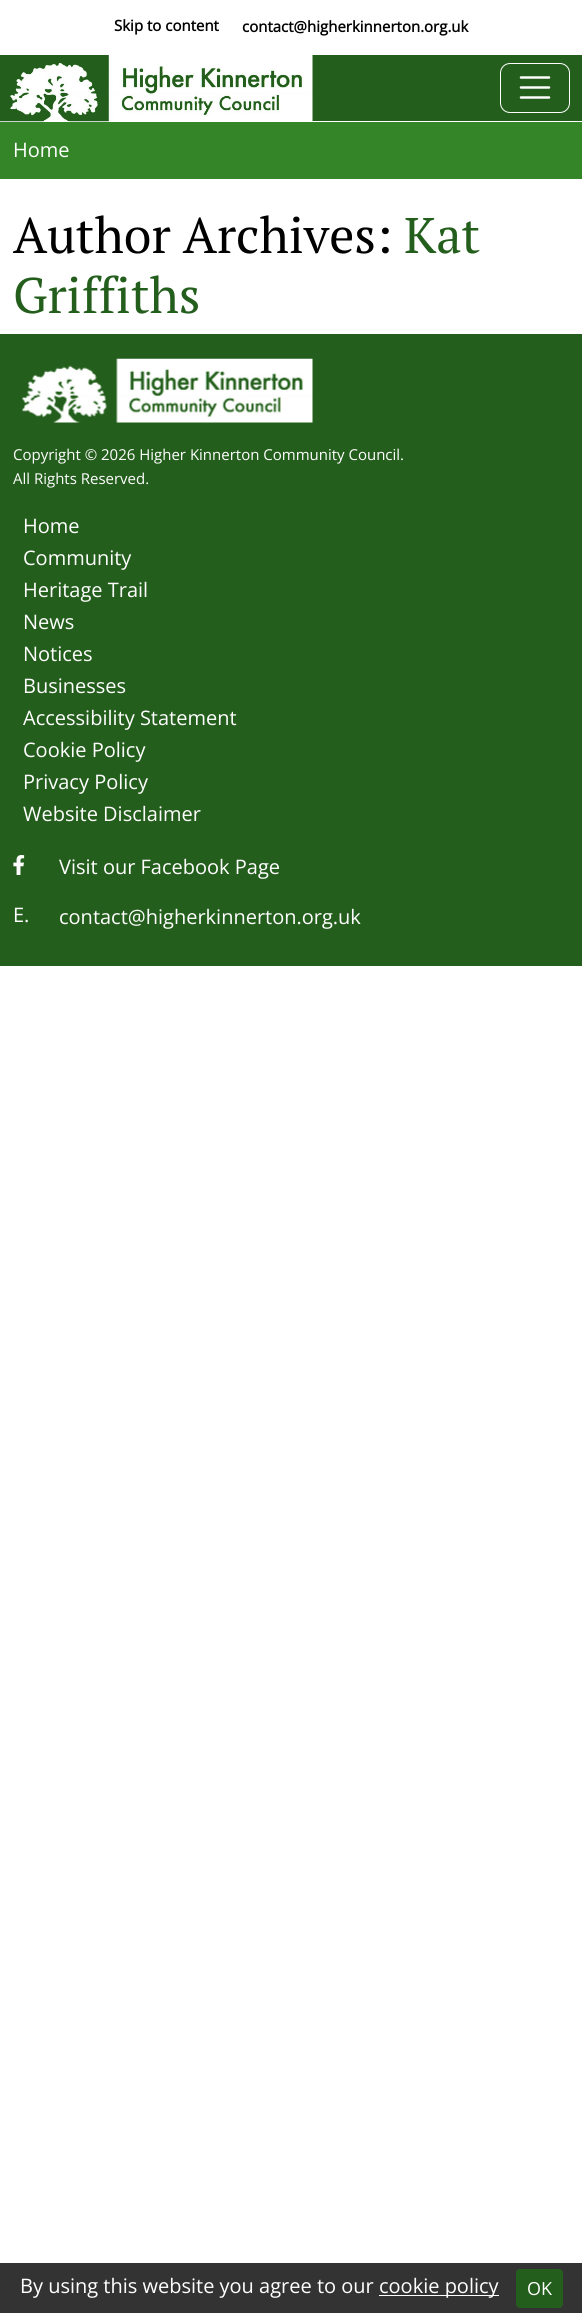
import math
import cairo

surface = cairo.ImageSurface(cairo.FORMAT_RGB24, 582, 2313)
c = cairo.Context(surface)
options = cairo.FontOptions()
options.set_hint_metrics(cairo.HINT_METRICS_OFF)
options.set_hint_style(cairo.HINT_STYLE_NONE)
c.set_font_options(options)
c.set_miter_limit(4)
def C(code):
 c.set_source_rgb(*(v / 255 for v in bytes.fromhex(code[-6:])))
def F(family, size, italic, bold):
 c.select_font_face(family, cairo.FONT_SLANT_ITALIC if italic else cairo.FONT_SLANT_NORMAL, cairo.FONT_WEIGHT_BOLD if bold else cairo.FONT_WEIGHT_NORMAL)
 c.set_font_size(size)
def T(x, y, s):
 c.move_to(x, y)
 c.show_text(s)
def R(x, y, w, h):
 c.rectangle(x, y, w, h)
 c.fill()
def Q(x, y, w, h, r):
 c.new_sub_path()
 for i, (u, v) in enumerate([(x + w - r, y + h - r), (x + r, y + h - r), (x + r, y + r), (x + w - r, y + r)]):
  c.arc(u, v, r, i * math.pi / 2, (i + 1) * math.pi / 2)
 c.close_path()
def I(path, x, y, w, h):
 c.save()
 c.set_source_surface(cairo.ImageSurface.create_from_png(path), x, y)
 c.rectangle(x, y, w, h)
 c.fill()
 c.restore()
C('ffffff')
c.paint()
F('Open Sans',15,0,1)
C('000000')
T(114,31,'Skip to content')
T(242,32,'contact@higherkinnerton.org.uk')
C('245e1c')
R(312,55,270,66)
I('1.png',0,55,313,67)
Q(500.5,63.5,69,49,9.5)
C('ffffff')
c.set_line_width(1)
c.stroke()
c.new_path()
c.move_to(521,77.5)
c.line_to(549,77.5)
c.move_to(521,87.5)
c.line_to(549,87.5)
c.move_to(521,97.5)
c.line_to(549,97.5)
c.set_line_width(2.5)
c.set_line_cap(cairo.LINE_CAP_ROUND)
c.stroke()
C('338528')
R(0,122,582,57)
F('Open Sans',20,0,0)
C('ffffff')
T(13,157,'Home')
F('PT Serif',50,0,0)
C('000000')
T(13,253,'Author Archives:')
C('245e1c')
T(404,253,'Kat')
T(13,313,'Griffiths')
R(0,334,582,632)
I('2.png',22,358,291,65)
F('Open Sans',15,0,0)
C('ffffff')
T(13,460,'Copyright © 2026 Higher Kinnerton Community Council.')
T(13,484,'All Rights Reserved.')
F('Open Sans',20,0,0)
T(23,533,'Home')
T(23,565,'Community')
T(23,597,'Heritage Trail')
T(23,629,'News')
T(23,661,'Notices')
T(23,693,'Businesses')
T(23,725,'Accessibility Statement')
T(23,757,'Cookie Policy')
T(23,789,'Privacy Policy')
T(23,821,'Website Disclaimer')
I('3.png',13,855,12,20)
T(59,874,'Visit our Facebook Page')
T(13,922,'E.')
T(59,924,'contact@higherkinnerton.org.uk')
C('333333')
R(0,2263,582,50)
C('ffffff')
T(20,2293,'By using this website you agree to our')
R(379,2295,120,1)
T(379,2293,'cookie policy')
C('245e1c')
Q(516.5,2269.5,46,38,3.5)
c.fill_preserve()
c.set_line_width(1)
c.set_line_cap(cairo.LINE_CAP_BUTT)
c.stroke()
F('Open Sans',18,0,0)
C('ffffff')
T(527,2295,'OK')
surface.write_to_png('o.png')
